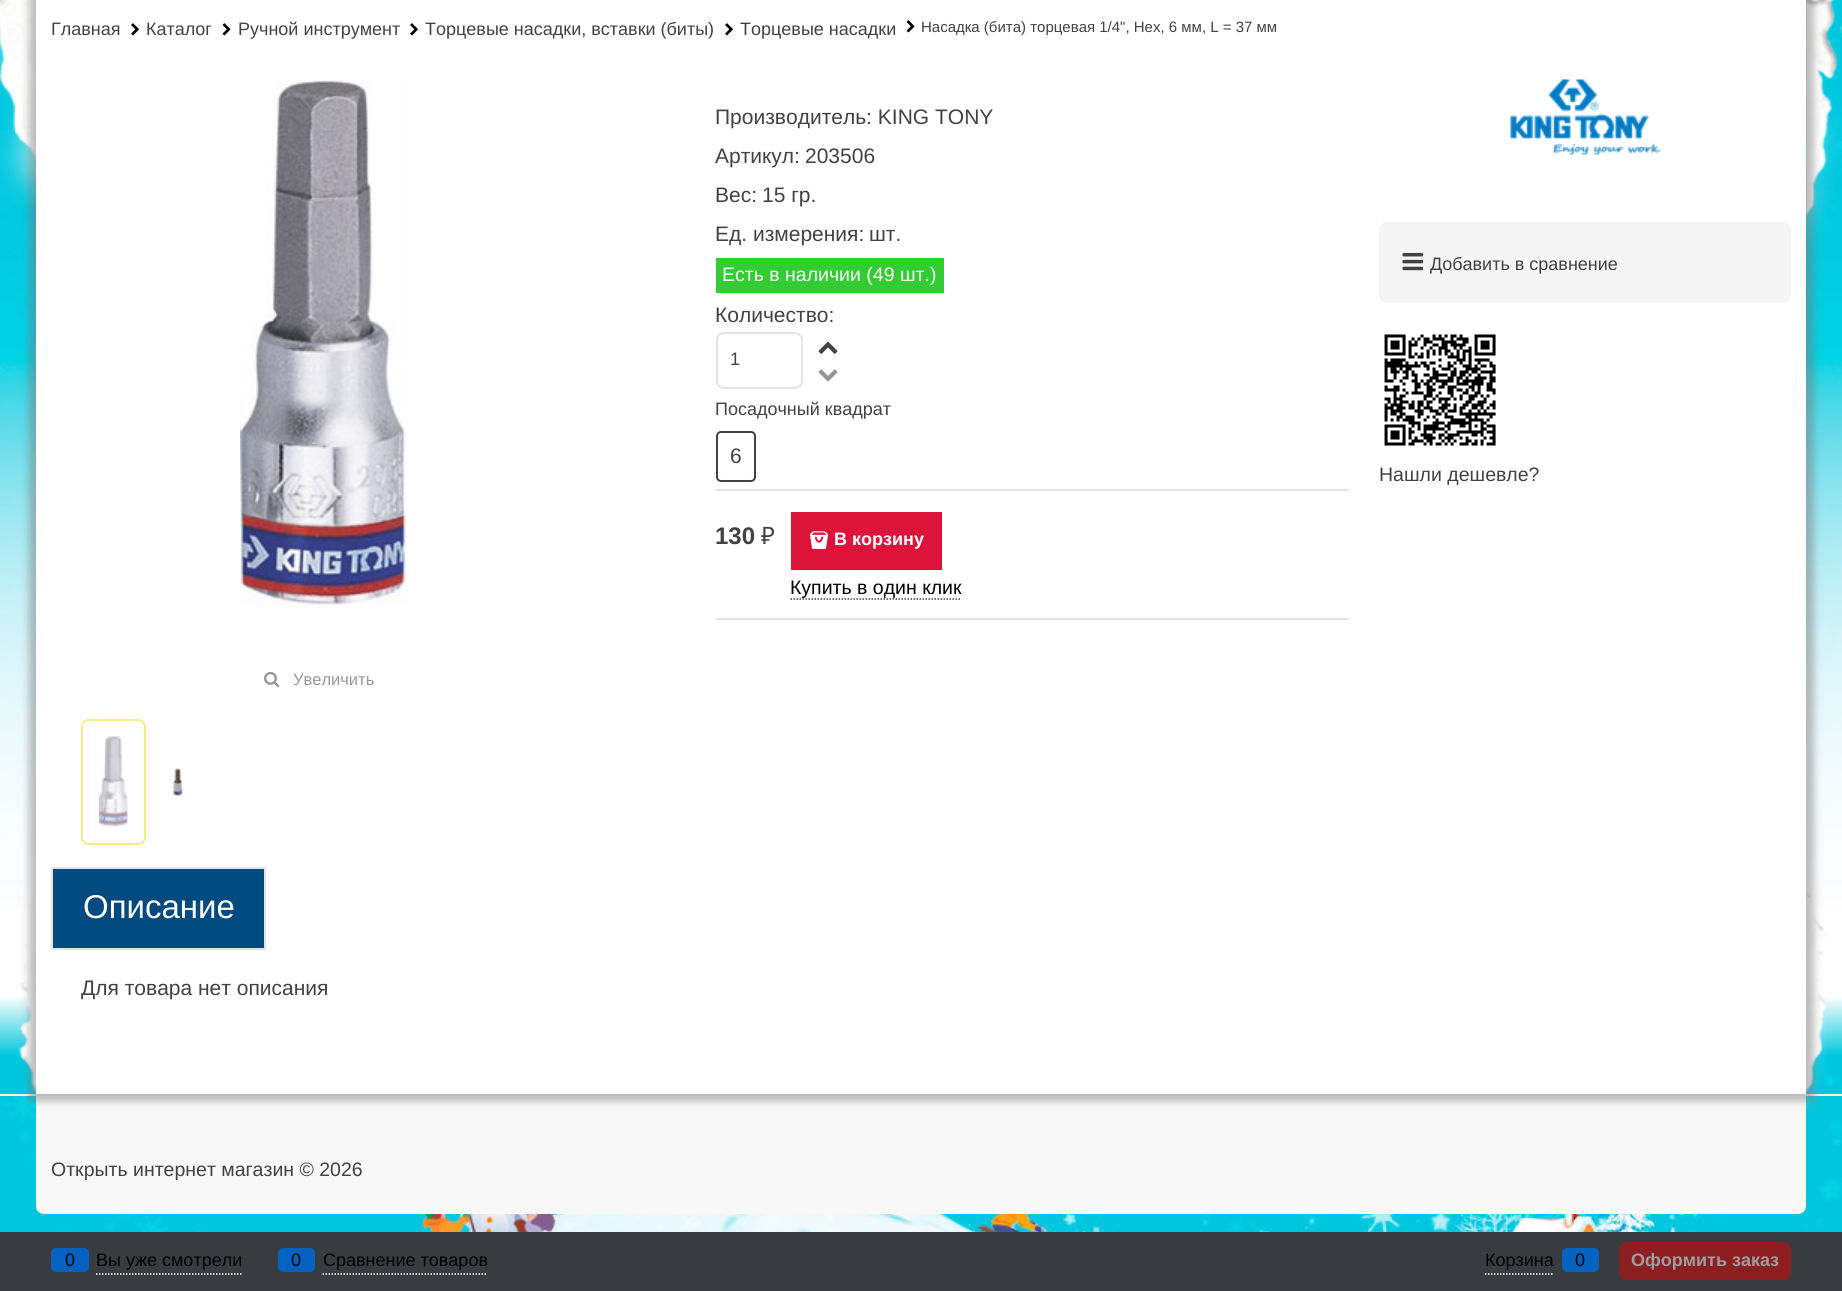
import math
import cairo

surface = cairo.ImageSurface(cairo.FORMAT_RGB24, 1842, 1291)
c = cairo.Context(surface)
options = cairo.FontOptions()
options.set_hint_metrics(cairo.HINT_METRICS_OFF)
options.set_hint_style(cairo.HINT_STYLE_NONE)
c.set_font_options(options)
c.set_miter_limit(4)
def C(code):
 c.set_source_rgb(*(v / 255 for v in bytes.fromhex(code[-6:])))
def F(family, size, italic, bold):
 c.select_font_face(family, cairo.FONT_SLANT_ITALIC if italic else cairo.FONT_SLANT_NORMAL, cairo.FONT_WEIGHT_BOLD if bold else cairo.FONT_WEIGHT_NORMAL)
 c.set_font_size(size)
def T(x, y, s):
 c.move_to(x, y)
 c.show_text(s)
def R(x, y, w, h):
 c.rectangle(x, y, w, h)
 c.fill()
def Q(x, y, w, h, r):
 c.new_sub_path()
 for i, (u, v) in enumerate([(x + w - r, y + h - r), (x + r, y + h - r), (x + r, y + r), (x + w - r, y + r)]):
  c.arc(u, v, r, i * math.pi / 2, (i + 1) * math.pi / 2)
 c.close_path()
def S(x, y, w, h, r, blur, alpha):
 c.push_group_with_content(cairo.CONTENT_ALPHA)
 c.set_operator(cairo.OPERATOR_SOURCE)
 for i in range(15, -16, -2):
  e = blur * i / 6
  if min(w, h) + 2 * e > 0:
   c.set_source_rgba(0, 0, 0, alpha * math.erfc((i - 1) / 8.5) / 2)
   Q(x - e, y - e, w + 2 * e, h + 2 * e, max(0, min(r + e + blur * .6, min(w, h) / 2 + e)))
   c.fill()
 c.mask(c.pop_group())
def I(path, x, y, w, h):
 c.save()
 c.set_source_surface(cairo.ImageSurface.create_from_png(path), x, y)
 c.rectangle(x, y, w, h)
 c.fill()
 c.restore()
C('ffffff')
c.paint()
I('1.png',0,0,1842,966)
I('18.png',0,996,1842,236)
gradient = cairo.LinearGradient(921,906,921,1056)
gradient.add_color_stop_rgba(0,1,1,1,0)
gradient.add_color_stop_rgba(.4,1,1,1,1)
gradient.add_color_stop_rgba(.6,1,1,1,1)
gradient.add_color_stop_rgba(1,1,1,1,0)
c.set_source(gradient)
R(0,996,1842,59)
I('2.png',0,0,36,205)
I('15.png',1806,0,36,245)
C('f5f5f5')
R(0,1094,1842,2)
I('16.png',19,889,17,205)
I('17.png',1806,891,21,221)
C('f8f8f8')
c.new_path()
c.move_to(36,1094)
c.line_to(1806,1094)
c.line_to(1806,1206)
c.curve_to(1806,1210.5,1802.5,1214,1798,1214)
c.line_to(44,1214)
c.curve_to(39.5,1214,36,1210.5,36,1206)
c.close_path()
c.fill()
C('7a7a7a')
S(29,-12,1785,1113,0,4,.5)
C('ffffff')
R(36,0,1770,1094)
F('Liberation Sans',18,0,0)
C('434142')
T(51,35,'Главная')
I('3.png',131,23,8,13)
T(146,35,'Каталог')
I('4.png',222,23,9,13)
T(238,35,'Ручной инструмент')
I('3.png',410,23,8,13)
T(425,35,'Торцевые насадки, вставки (биты)')
I('3.png',725,23,8,13)
T(740,35,'Торцевые насадки')
I('4.png',906,20,9,13)
F('Liberation Sans',15,0,0)
T(921,32,'Насадка (бита) торцевая 1/4", Hex, 6 мм, L = 37 мм')
F('Liberation Sans',21,0,0)
T(715,124,'Производитель: KING TONY')
T(715,163,'Артикул:')
T(805,163,'203506')
T(715,202,'Вес:')
T(762,202,'15 гр.')
T(715,241,'Ед. измерения:')
T(869,241,'шт.')
C('32cd32')
R(716,258,228,35)
F('Liberation Sans',19.5,0,0)
C('ffffff')
T(722,281,'Есть в наличии (49 шт.)')
F('Liberation Sans',21,0,0)
C('434142')
T(715,322,'Количество:')
Q(717,333,85,55,7)
C('e2e3e4')
c.stroke()
F('Liberation Sans',18,0,0)
C('434142')
T(730,365,'1')
I('5.png',818,341,20,13)
I('6.png',818,369,20,13)
T(715,415,'Посадочный квадрат')
Q(717,432,38,49,4)
c.stroke()
F('Liberation Sans',21,0,0)
T(730,463,'6')
C('e2e3e4')
R(716,489,633,2)
R(716,618,633,2)
F('Liberation Sans',24,0,1)
C('434142')
T(715,544,'130')
F('Noto Sans',24,0,0)
T(761,544,'₽')
C('dc143c')
R(791,512,151,58)
I('7.png',810,531,18,18)
F('Liberation Sans',18,0,1)
C('ffffff')
T(834,545,'В корзину')
c.new_path()
c.move_to(790.5,599)
c.line_to(961.5,599)
C('434142')
c.set_line_width(1.5)
c.set_dash([1.5,1.5])
c.stroke()
F('Liberation Sans',19.5,0,0)
C('000000')
T(790,594,'Купить в один клик')
I('8.png',240,80,167,525)
I('9.png',264,671,16,17)
F('Liberation Sans',16.5,0,0)
C('94969b')
T(293,685,'Увеличить')
Q(82,720,63,124,7)
C('f7eb83')
c.set_line_width(2)
c.set_dash([])
c.stroke()
I('10.png',99,736,29,91)
I('11.png',172,768,12,29)
C('004a7f')
c.rectangle(52,868,213,81)
c.fill_preserve()
C('e2e3e4')
c.stroke()
F('Liberation Sans',33,0,0)
C('ffffff')
T(83,918,'Описание')
F('Liberation Sans',21,0,0)
C('434142')
T(81,995,'Для товара нет описания')
I('12.png',1510,79,151,76)
C('f5f5f5')
Q(1379,222,412,81,8)
c.fill()
I('13.png',1402,253,22,18)
F('Liberation Sans',18,0,0)
C('434142')
T(1430,270,'Добавить в сравнение')
I('14.png',1384,334,112,112)
F('Liberation Sans',19.5,0,0)
T(1379,481,'Нашли дешевле?')
T(51,1176,'Открыть интернет магазин © 2026')
C('383c40')
R(0,1232,1842,59)
c.new_path()
c.move_to(96,1274)
c.line_to(241.5,1274)
C('ffffff')
c.set_line_width(1.5)
c.set_dash([1.5,1.5])
c.stroke()
C('0662c1')
Q(51,1248,38,24,5)
c.fill()
F('Liberation Sans',18,0,0)
C('000000')
T(65,1266,'0')
T(96,1266,'Вы уже смотрели')
c.new_path()
c.move_to(322.5,1274)
c.line_to(487.5,1274)
C('ffffff')
c.stroke()
C('0662c1')
Q(278,1248,37,24,5)
c.fill()
C('000000')
T(291,1266,'0')
T(323,1266,'Сравнение товаров')
c.new_path()
c.move_to(1485,1274)
c.line_to(1554,1274)
C('ffffff')
c.stroke()
C('000000')
T(1485,1266,'Корзина')
C('0662c1')
Q(1562,1248,37,24,5)
c.fill()
C('000000')
T(1575,1266,'0')
C('8d1e20')
Q(1619,1242,172,38,8)
c.fill()
F('Liberation Sans',18,0,1)
C('9c9ea0')
T(1631,1266,'Оформить заказ')
surface.write_to_png('o.png')
